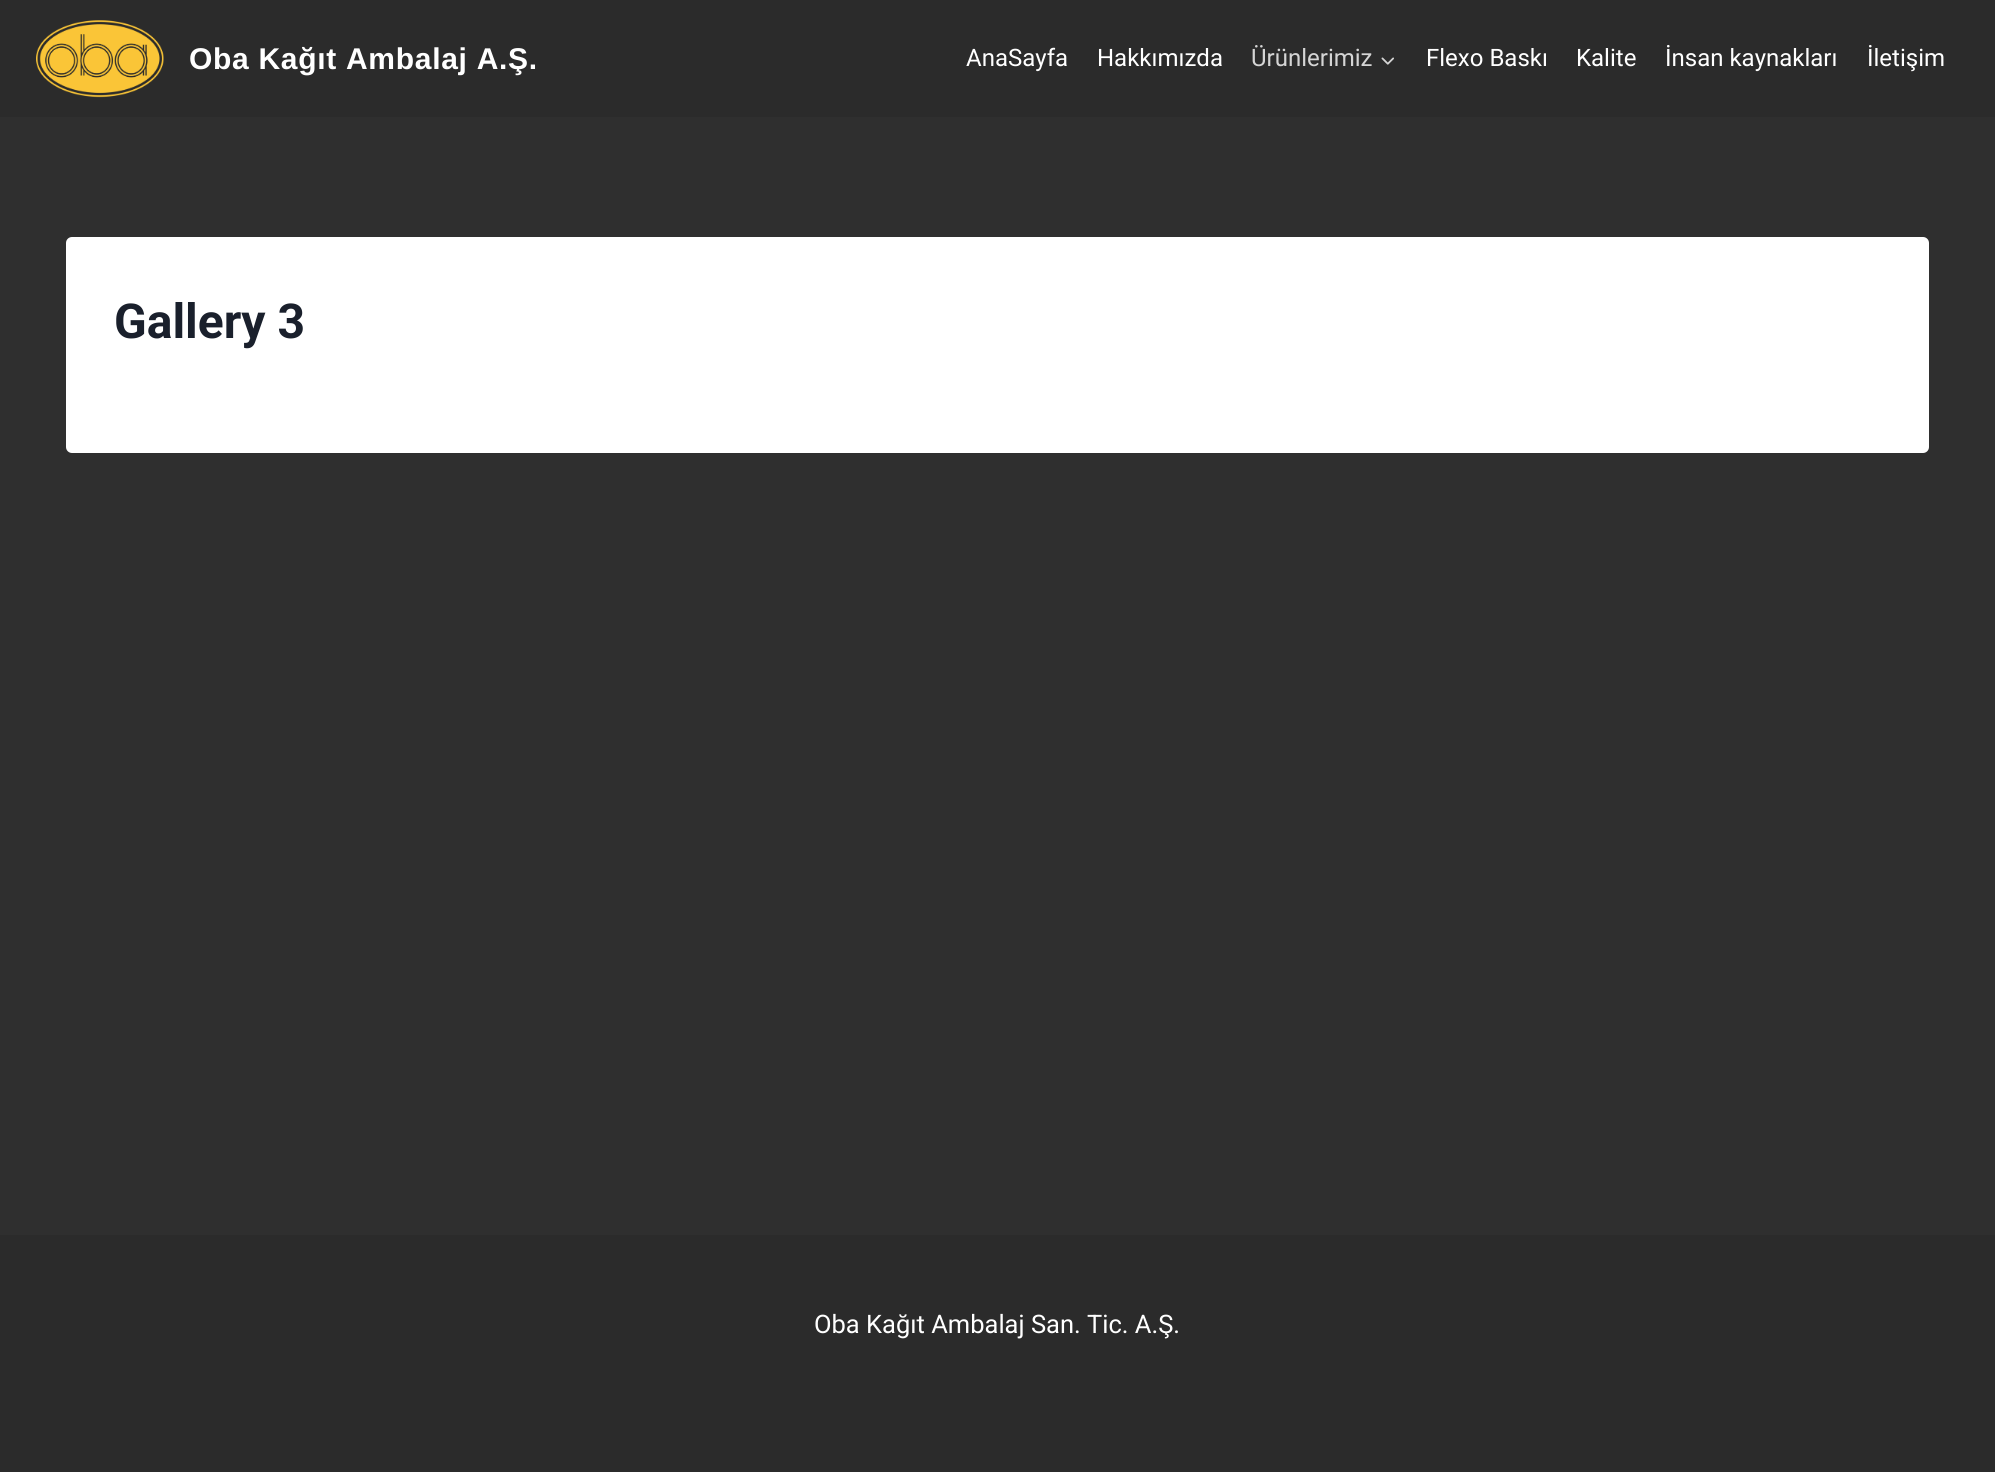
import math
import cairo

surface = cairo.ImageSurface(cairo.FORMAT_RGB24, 1995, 1472)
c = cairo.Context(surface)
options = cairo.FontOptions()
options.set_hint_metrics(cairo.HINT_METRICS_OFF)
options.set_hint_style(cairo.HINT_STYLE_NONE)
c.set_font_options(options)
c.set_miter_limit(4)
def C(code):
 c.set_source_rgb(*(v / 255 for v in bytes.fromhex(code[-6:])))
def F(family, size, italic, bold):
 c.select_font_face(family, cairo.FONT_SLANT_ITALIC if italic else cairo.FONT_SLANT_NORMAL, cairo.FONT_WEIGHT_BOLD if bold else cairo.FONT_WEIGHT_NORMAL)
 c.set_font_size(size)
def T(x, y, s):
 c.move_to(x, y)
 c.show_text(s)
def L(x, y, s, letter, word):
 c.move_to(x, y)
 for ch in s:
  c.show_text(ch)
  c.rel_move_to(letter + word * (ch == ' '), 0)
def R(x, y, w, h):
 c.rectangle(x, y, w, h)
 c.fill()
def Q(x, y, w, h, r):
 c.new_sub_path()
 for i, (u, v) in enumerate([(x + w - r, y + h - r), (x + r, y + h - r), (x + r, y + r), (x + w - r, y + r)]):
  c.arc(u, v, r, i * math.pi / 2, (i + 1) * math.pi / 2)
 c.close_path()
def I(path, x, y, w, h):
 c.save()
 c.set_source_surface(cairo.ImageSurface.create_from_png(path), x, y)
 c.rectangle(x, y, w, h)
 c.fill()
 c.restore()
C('2f2f2f')
c.paint()
C('2b2b2b')
R(0,0,1995,117)
I('1.png',36,20,128,78)
F('Liberation Sans',30,0,1)
C('ffffff')
L(189,69,'Oba Kağıt Ambalaj A.Ş.',.7,0)
F('Roboto',24,0,0)
T(966,66,'AnaSayfa')
T(1097,66,'Hakkımızda')
C('d5d5d5')
T(1251,66,'Ürünlerimiz')
I('2.png',1381,57,13,8)
C('ffffff')
T(1426,66,'Flexo Baskı')
T(1576,66,'Kalite')
T(1665,66,'İnsan kaynakları')
T(1867,66,'İletişim')
Q(66,237,1863,216,6)
c.fill()
F('Roboto',48,0,1)
C('1a202c')
T(114,338,'Gallery 3')
C('2b2b2b')
R(0,1235,1995,237)
F('Roboto',25.5,0,0)
C('ffffff')
T(814,1333,'Oba Kağıt Ambalaj San. Tic. A.Ş.')
surface.write_to_png('o.png')
